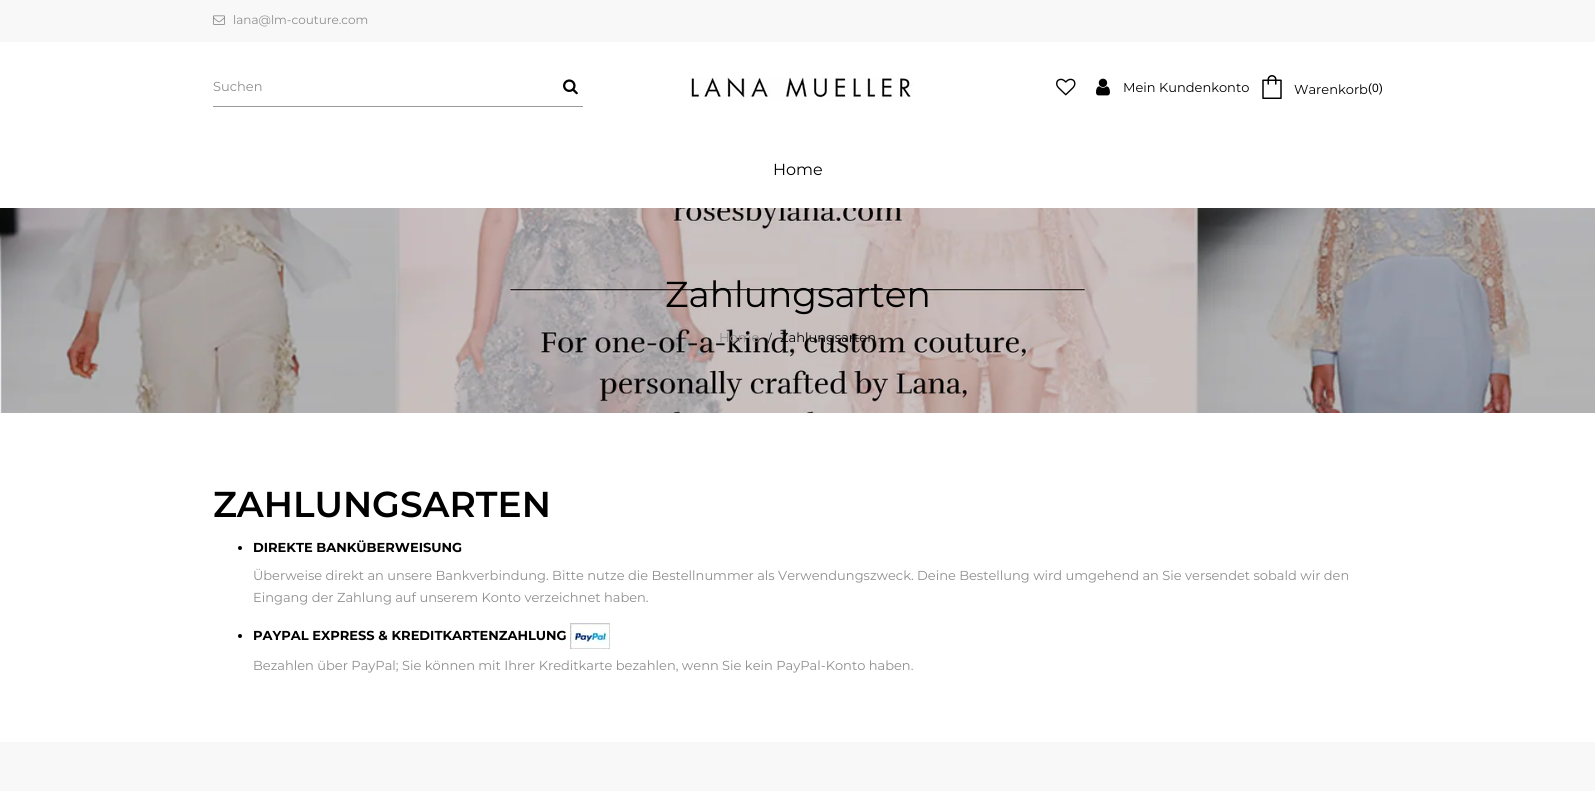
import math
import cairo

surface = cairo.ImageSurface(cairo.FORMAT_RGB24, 1595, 791)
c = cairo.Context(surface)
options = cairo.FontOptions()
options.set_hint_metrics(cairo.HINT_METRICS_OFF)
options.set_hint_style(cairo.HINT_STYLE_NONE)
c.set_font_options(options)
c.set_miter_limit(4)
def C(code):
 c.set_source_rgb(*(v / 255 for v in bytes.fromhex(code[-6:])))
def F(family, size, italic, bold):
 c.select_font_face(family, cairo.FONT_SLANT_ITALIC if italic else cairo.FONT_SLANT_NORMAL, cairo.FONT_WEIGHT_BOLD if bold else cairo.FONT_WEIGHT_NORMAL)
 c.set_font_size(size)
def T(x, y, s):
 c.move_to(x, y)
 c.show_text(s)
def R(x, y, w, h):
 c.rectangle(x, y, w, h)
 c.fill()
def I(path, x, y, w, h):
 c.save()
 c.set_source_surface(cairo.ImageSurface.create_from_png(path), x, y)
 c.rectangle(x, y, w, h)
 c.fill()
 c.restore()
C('ffffff')
c.paint()
C('f8f8f8')
R(0,0,1595,42)
I('1.png',213,15,12,10)
F('Montserrat',12,0,0)
C('8d8d8d')
T(233,24,'lana@lm-couture.com')
C('9a9a9a')
R(213,106,370,1)
F('Montserrat',13,0,0)
C('8d8d8d')
T(213,91,'Suchen')
I('2.png',563,79,15,16)
I('3.png',690,77,223,24)
I('4.png',1056,78,20,18)
I('5.png',1096,78,14,18)
C('000000')
T(1123,92,'Mein Kundenkonto')
I('6.png',1262,75,20,24)
T(1294,94,'Warenkorb')
F('Liberation Sans',12,0,0)
T(1368,92,'(0)')
F('Montserrat',16,0,0)
T(773,175,'Home')
I('7.png',0,208,1595,205)
F('Montserrat',36,0,0)
T(665,307,'Zahlungsarten')
F('Montserrat',13,0,0)
C('8d8d8d')
T(719,342,'Home')
F('Montserrat',11,0,0)
C('000000')
T(768,342,'/')
F('Montserrat',13,0,0)
T(780,342,'Zahlungsarten')
F('Montserrat SemiBold',36,0,0)
T(213,517,'ZAHLUNGSARTEN')
c.new_path()
c.arc(240,548,2,0,2 * math.pi)
c.fill()
F('Montserrat',13,0,1)
T(253,552,'DIREKTE BANKÜBERWEISUNG')
F('Montserrat',13,0,0)
C('8d8d8d')
T(253,580,'Überweise direkt an unsere Bankverbindung. Bitte nutze die Bestellnummer als Verwendungszweck. Deine Bestellung wird umgehend an Sie versendet sobald wir den')
T(253,602,'Eingang der Zahlung auf unserem Konto verzeichnet haben.')
C('000000')
c.new_path()
c.arc(240,636,2,0,2 * math.pi)
c.fill()
F('Montserrat',13,0,1)
T(253,640,'PAYPAL EXPRESS & KREDITKARTENZAHLUNG')
I('8.png',570,623,40,26)
F('Montserrat',13,0,0)
C('8d8d8d')
T(253,670,'Bezahlen über PayPal; Sie können mit Ihrer Kreditkarte bezahlen, wenn Sie kein PayPal-Konto haben.')
C('f8f8f8')
R(0,742,1595,49)
surface.write_to_png('o.png')
